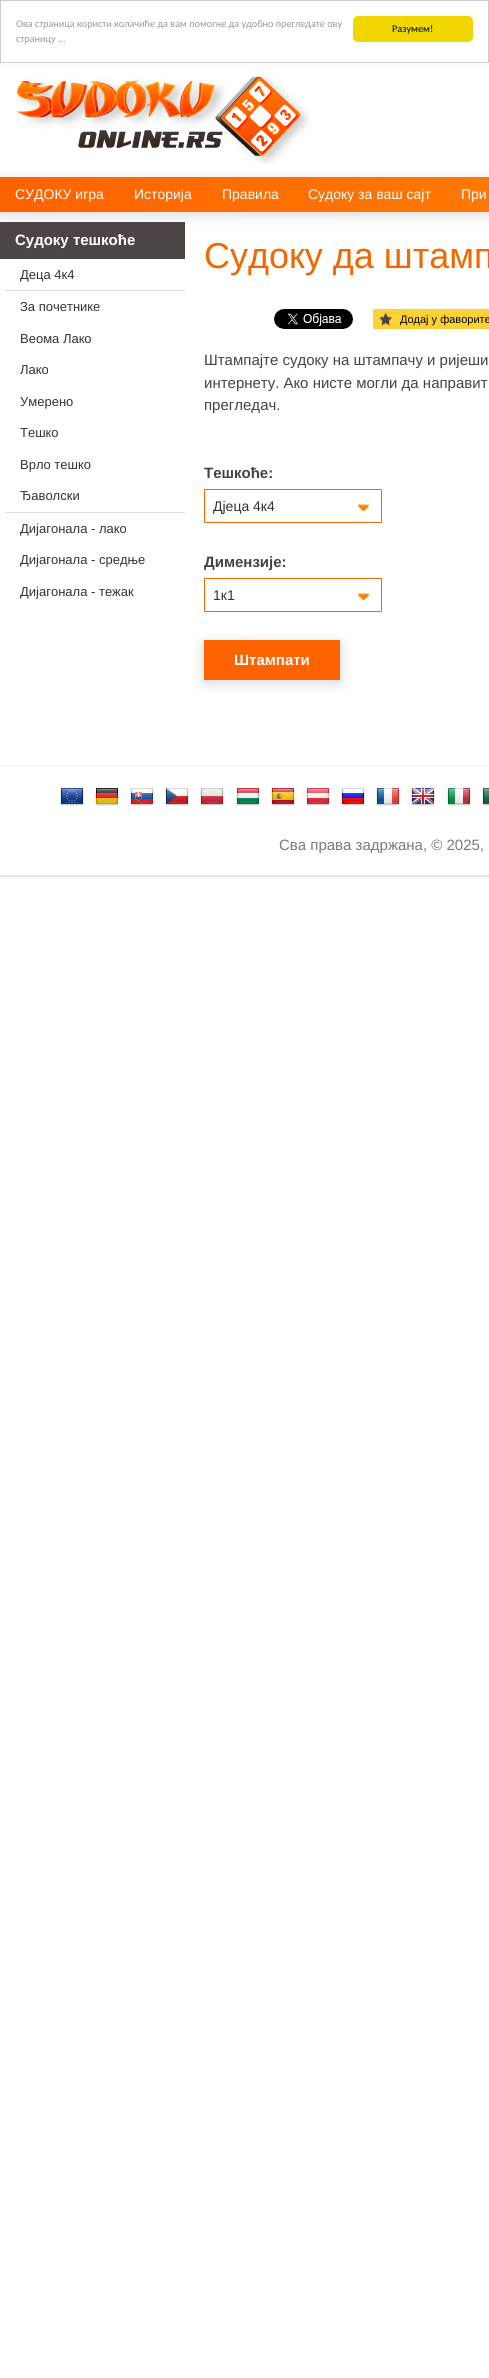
import math
import cairo

surface = cairo.ImageSurface(cairo.FORMAT_RGB24, 489, 2378)
c = cairo.Context(surface)
options = cairo.FontOptions()
options.set_hint_metrics(cairo.HINT_METRICS_OFF)
options.set_hint_style(cairo.HINT_STYLE_NONE)
c.set_font_options(options)
c.set_miter_limit(4)
def C(code):
 c.set_source_rgb(*(v / 255 for v in bytes.fromhex(code[-6:])))
def F(family, size, italic, bold):
 c.select_font_face(family, cairo.FONT_SLANT_ITALIC if italic else cairo.FONT_SLANT_NORMAL, cairo.FONT_WEIGHT_BOLD if bold else cairo.FONT_WEIGHT_NORMAL)
 c.set_font_size(size)
def T(x, y, s):
 c.move_to(x, y)
 c.show_text(s)
def R(x, y, w, h):
 c.rectangle(x, y, w, h)
 c.fill()
def Q(x, y, w, h, r):
 c.new_sub_path()
 for i, (u, v) in enumerate([(x + w - r, y + h - r), (x + r, y + h - r), (x + r, y + r), (x + w - r, y + r)]):
  c.arc(u, v, r, i * math.pi / 2, (i + 1) * math.pi / 2)
 c.close_path()
def S(x, y, w, h, r, blur, alpha):
 c.push_group_with_content(cairo.CONTENT_ALPHA)
 c.set_operator(cairo.OPERATOR_SOURCE)
 for i in range(15, -16, -2):
  e = blur * i / 6
  if min(w, h) + 2 * e > 0:
   c.set_source_rgba(0, 0, 0, alpha * math.erfc((i - 1) / 8.5) / 2)
   Q(x - e, y - e, w + 2 * e, h + 2 * e, max(0, min(r + e + blur * .6, min(w, h) / 2 + e)))
   c.fill()
 c.mask(c.pop_group())
def I(path, x, y, w, h):
 c.save()
 c.set_source_surface(cairo.ImageSurface.create_from_png(path), x, y)
 c.rectangle(x, y, w, h)
 c.fill()
 c.restore()
C('ffffff')
c.paint()
c.save()
c.rectangle(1,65,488,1)
c.clip()
C('000000')
S(0,67,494,701,0,1.5,.2)
c.restore()
c.rectangle(.5,.5,488,62)
C('cccccc')
c.set_line_width(1)
c.stroke()
F('Carlito',10.2,0,0)
C('999999')
T(16,27,'Ова страница користи колачиће да вам помогне да удобно прегледате ову')
T(16,42,'страницу ...')
C('f1d600')
Q(353,16,120,26,5)
c.fill()
C('000000')
T(392,32,'Разумем!')
I('1.png',17,76,293,88)
C('4b4643')
R(0,222,185,37)
C('000000')
S(0,180,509,35,0,6.5,.15)
gradient = cairo.LinearGradient(0,195,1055,194)
gradient.add_color_stop_rgba(0,1,0.384,0,1)
gradient.add_color_stop_rgba(1,1,0.576,0.02,1)
c.set_source(gradient)
R(0,177,489,35)
F('Liberation Sans',14,0,0)
C('ffffff')
T(15,199,'СУДОКУ игра')
T(134,199,'Историја')
T(222,199,'Правила')
T(308,199,'Судоку за ваш сајт')
T(461,199,'При')
F('Liberation Sans',15,0,1)
T(15,245,'Судоку тешкоће')
F('Liberation Sans',13,0,0)
C('333333')
T(20,279,'Деца 4к4')
C('dddddd')
R(5,290,180,1)
C('333333')
T(20,311,'За почетнике')
T(20,343,'Веома Лако')
T(20,374,'Лако')
T(20,406,'Умерено')
T(20,437,'Тешко')
T(20,469,'Врло тешко')
T(20,500,'Ђаволски')
C('dddddd')
R(5,512,180,1)
C('333333')
T(20,533,'Дијагонала - лако')
T(20,564,'Дијагонала - средње')
T(20,596,'Дијагонала - тежак')
F('Liberation Sans',36,0,0)
C('f16800')
T(204,268,'Судоку да штамп')
I('2.png',274,309,79,20)
C('ffd135')
Q(373,309,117,20,1)
c.fill()
I('3.png',379,312,13,14)
F('Liberation Sans',11,0,0)
C('000000')
T(400,323,'Додај у фаворите')
F('Liberation Sans',15,0,0)
C('444444')
T(204,365,'Штампајте судоку на штампачу и ријеши')
T(204,388,'интернету. Ако нисте могли да направит')
T(204,410,'прегледач.')
F('Liberation Sans',15,0,1)
T(204,478,'Тешкоће:')
I('4.png',358,504,11,8)
Q(204.5,489.5,177,33,.5)
C('f16800')
c.stroke()
F('Liberation Sans',14,0,0)
C('333333')
T(213,511,'Дјеца 4к4')
F('Liberation Sans',15,0,1)
C('444444')
T(204,567,'Димензије:')
I('4.png',358,593,11,8)
Q(204.5,578.5,177,33,.5)
C('f16800')
c.stroke()
F('Liberation Sans',14,0,0)
C('333333')
T(213,600,'1к1')
C('000000')
S(204,643,136,40,0,6.5,.15)
C('ff6200')
R(204,640,136,40)
F('Liberation Sans',15,0,1)
C('ffffff')
T(234,665,'Штампати')
C('000000')
S(0,768,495,108,0,2,.2)
C('ffffff')
R(0,767,489,108)
I('5.png',60,788,24,18)
I('6.png',95,788,24,18)
I('7.png',130,788,24,18)
I('8.png',165,788,24,18)
I('9.png',200,788,24,18)
I('10.png',236,788,24,18)
I('11.png',271,788,24,18)
I('12.png',306,788,24,18)
I('13.png',341,788,24,18)
I('14.png',376,788,24,18)
I('15.png',411,788,24,18)
I('16.png',447,788,24,18)
I('17.png',482,788,7,18)
F('Liberation Sans',15,0,0)
C('7a7a7a')
T(279,850,'Сва права задржана, © 2025,')
surface.write_to_png('o.png')
